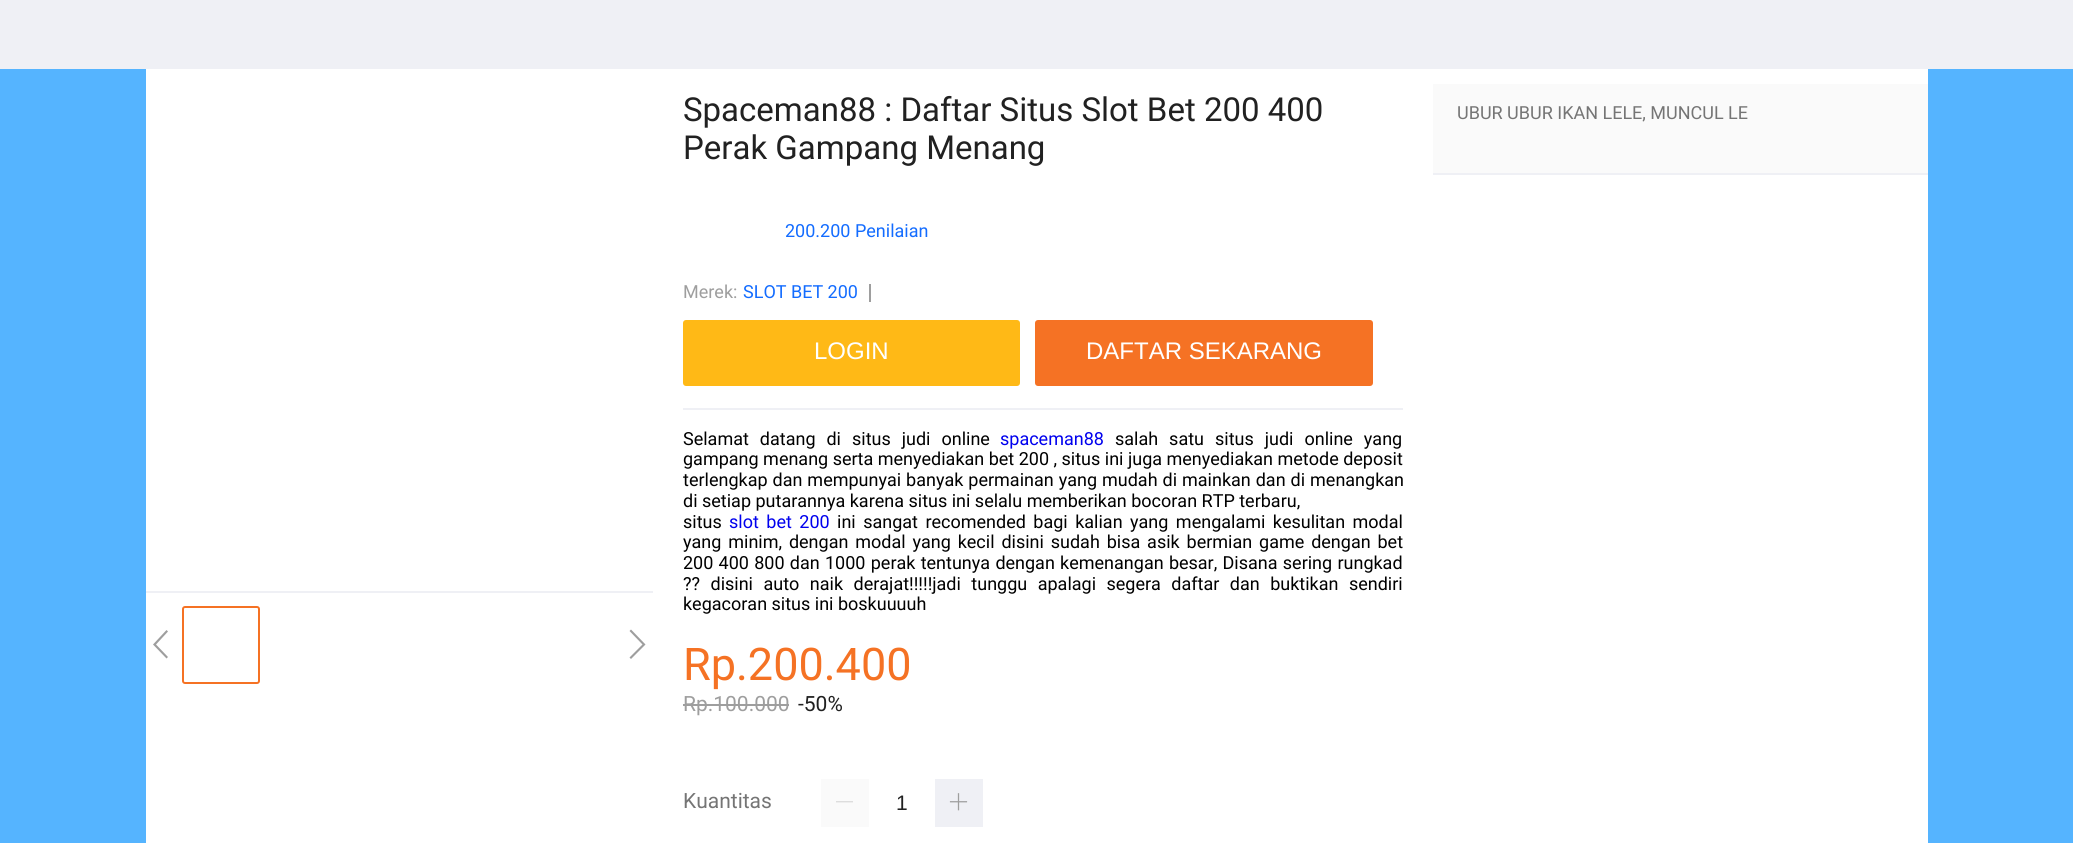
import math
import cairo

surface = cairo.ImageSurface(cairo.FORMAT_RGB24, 2073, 843)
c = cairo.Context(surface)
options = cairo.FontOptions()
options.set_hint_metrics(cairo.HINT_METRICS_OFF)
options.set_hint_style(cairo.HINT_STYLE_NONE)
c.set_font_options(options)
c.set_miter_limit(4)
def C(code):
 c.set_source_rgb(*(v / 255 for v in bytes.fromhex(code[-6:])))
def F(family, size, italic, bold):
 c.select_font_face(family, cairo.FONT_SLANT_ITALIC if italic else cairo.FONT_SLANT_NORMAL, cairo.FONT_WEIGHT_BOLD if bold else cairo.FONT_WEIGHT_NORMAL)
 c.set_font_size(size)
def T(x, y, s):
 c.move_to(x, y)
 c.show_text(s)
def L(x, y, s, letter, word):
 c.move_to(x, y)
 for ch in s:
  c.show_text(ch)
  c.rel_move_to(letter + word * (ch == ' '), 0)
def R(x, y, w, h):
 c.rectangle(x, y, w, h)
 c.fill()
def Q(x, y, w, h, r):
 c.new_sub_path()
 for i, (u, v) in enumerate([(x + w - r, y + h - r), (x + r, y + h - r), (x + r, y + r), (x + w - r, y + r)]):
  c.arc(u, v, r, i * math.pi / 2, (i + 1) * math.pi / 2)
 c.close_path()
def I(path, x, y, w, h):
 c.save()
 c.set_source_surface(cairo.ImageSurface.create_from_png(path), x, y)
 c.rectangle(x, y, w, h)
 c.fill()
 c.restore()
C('55b4ff')
c.paint()
C('eff0f5')
R(0,0,2073,69)
C('ffffff')
R(146,69,1782,774)
C('eff0f5')
R(146,591,507,2)
C('9e9e9e')
c.new_path()
c.move_to(168,657)
c.line_to(156,644.5)
c.line_to(168,631.5)
c.line_to(166.5,630)
c.line_to(153,644.5)
c.line_to(166.5,658.5)
c.close_path()
c.fill()
Q(183,607,76,76,2)
C('f57224')
c.stroke()
C('9e9e9e')
c.new_path()
c.move_to(631,659)
c.line_to(629.5,657.5)
c.line_to(642.5,644.5)
c.line_to(629.5,631)
c.line_to(631,629.5)
c.line_to(645.5,644.5)
c.close_path()
c.fill()
F('Roboto',33,0,0)
C('212121')
T(683,121,'Spaceman88 : Daftar Situs Slot Bet 200 400')
T(683,159,'Perak Gampang Menang')
F('Roboto',18,0,0)
C('136cff')
T(785,237,'200.200 Penilaian')
C('eff0f5')
R(683,408,720,2)
C('9e9e9e')
T(683,298,'Merek:')
C('136cff')
T(743,298,'SLOT BET 200')
C('9e9e9e')
R(869,284,2,18)
C('ffb916')
Q(683,320,337,66,3)
c.fill()
F('Liberation Sans',24,0,0)
C('ffffff')
T(814,359,'LOGIN')
C('f57224')
Q(1035,320,338,66,3)
c.fill()
C('ffffff')
T(1086,359,'DAFTAR SEKARANG')
F('Roboto',18,0,0)
C('000000')
L(683,445,'Selamat datang di situs judi online',0,6.5)
C('0000ee')
T(1000,445,'spaceman88')
C('000000')
L(1115,445,'salah satu situs judi online yang',0,6.5)
T(683,465,'gampang menang serta menyediakan bet 200 , situs ini juga menyediakan metode deposit')
L(683,486,'terlengkap dan mempunyai banyak permainan yang mudah di mainkan dan di menangkan',0,.5)
T(683,507,'di setiap putarannya karena situs ini selalu memberikan bocoran RTP terbaru,')
T(683,528,'situs')
C('0000ee')
L(729,528,'slot bet 200',0,3)
C('000000')
L(837,528,'ini sangat recomended bagi kalian yang mengalami kesulitan modal',0,3)
L(683,548,'yang minim, dengan modal yang kecil disini sudah bisa asik bermian game dengan bet',0,2.4)
L(683,569,'200 400 800 dan 1000 perak tentunya dengan kemenangan besar, Disana sering rungkad',0,.8)
L(683,590,'?? disini auto naik derajat!!!!!jadi tunggu apalagi segera daftar dan buktikan sendiri',0,6)
T(683,610,'kegacoran situs ini boskuuuuh')
F('Roboto',45,0,0)
C('f57224')
T(683,680,'Rp.200.400')
F('Roboto',21,0,0)
C('9e9e9e')
T(683,711,'Rp.100.000')
R(683,704,106,2)
C('212121')
T(798,711,'-50%')
C('757575')
T(683,808,'Kuantitas')
C('fafafa')
R(821,779,48,48)
I('1.png',836,801,17,2)
C('eff0f5')
R(935,779,48,48)
I('2.png',949,793,19,18)
F('Liberation Sans',21,0,0)
C('212121')
T(896,810,'1')
C('fafafa')
R(1433,84,495,89)
F('Roboto',18,0,0)
C('757575')
T(1457,119,'UBUR UBUR IKAN LELE, MUNCUL LE')
C('eff0f5')
R(1433,173,495,2)
surface.write_to_png('o.png')
